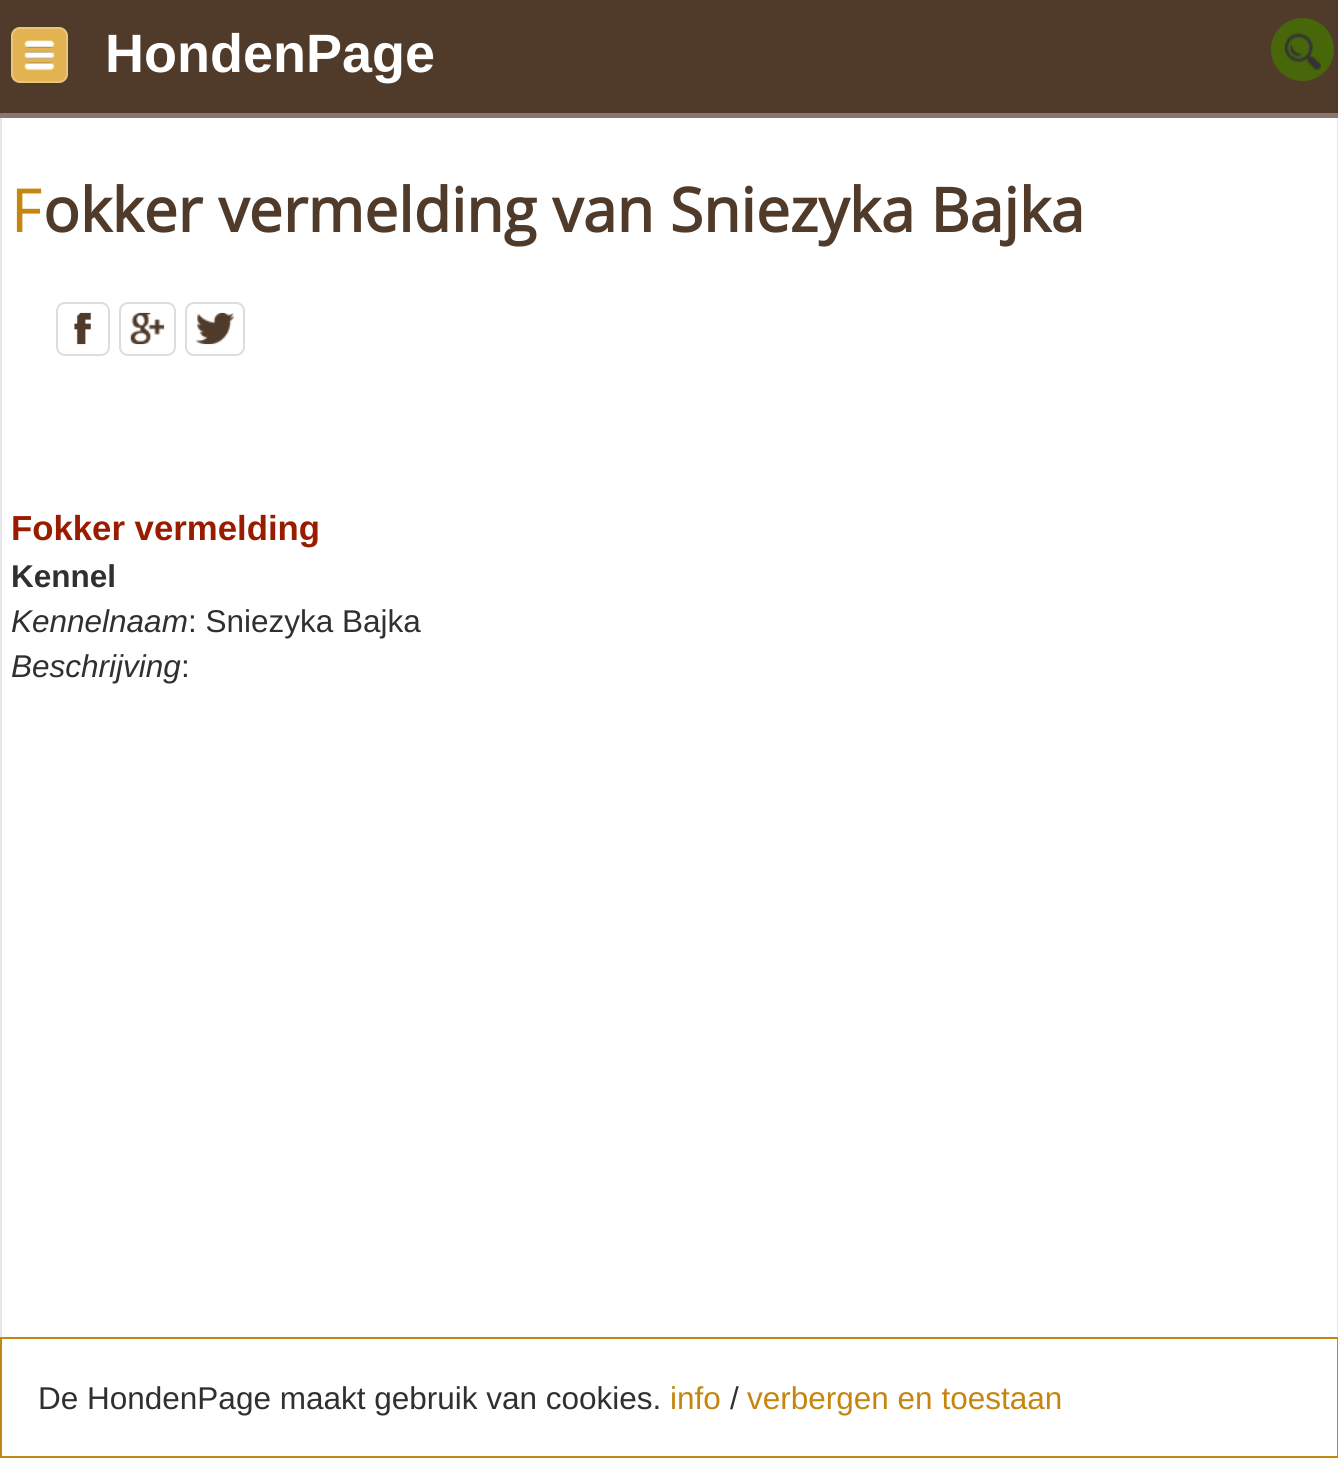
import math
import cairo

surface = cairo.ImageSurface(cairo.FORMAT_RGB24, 1338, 1458)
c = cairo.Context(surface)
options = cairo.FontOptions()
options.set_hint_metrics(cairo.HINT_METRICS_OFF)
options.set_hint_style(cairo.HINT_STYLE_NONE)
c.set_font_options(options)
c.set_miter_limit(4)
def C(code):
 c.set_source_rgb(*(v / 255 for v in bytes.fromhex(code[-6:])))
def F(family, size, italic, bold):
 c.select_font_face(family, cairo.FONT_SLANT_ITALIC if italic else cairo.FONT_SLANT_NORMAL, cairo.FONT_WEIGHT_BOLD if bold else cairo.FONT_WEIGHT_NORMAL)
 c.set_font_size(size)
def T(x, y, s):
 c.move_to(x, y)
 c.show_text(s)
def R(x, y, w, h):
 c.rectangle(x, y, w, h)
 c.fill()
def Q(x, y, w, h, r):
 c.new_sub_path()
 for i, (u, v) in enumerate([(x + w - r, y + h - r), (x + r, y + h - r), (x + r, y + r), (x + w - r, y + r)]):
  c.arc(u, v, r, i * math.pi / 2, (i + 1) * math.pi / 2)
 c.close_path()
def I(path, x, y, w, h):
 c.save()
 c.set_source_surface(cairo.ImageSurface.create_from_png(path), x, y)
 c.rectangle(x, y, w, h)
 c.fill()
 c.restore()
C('ffffff')
c.paint()
C('503a29')
R(0,0,1338,113)
c.rectangle(1,114,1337,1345)
C('e7e7e7')
c.stroke()
C('87776c')
R(0,113,1338,5)
C('e2b350')
Q(11,27,57,56,9)
c.fill()
Q(12,28,55,54,8)
c.set_source_rgba(1,1,1,0.25)
c.stroke()
I('1.png',24,40,31,31)
F('Liberation Sans',54,0,1)
C('ffffff')
T(105,72,'HondenPage')
C('48670a')
c.new_path()
c.arc(1302.5,49.5,31.5,0,2 * math.pi)
c.fill()
I('2.png',1284,32,37,38)
F('Noto Sans',60.75,0,0)
C('c4860f')
T(11,232,'F')
F('Open Sans',60.75,0,1)
C('503a29')
T(43,232,'okker vermelding van Sniezyka Bajka')
Q(57,303,52,52,8)
C('dddddd')
c.stroke()
Q(120,303,55,52,8)
c.stroke()
Q(186,303,58,52,8)
c.stroke()
I('3.png',74,312,17,33)
I('4.png',130,312,35,33)
I('5.png',196,312,38,33)
F('Liberation Sans',34.75,0,1)
C('991c00')
T(11,540,'Fokker vermelding')
F('Liberation Sans',31.5,0,1)
C('303030')
T(11,587,'Kennel')
F('Liberation Sans',31.5,1,0)
T(11,632,'Kennelnaam')
F('Liberation Sans',31.5,0,0)
T(188,632,': Sniezyka Bajka')
F('Liberation Sans',31.5,1,0)
T(11,677,'Beschrijving')
F('Liberation Sans',31.5,0,0)
T(181,677,':')
c.rectangle(1,1338,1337,119)
C('c4860f')
c.stroke()
C('303030')
T(38,1409,'De HondenPage maakt gebruik van cookies.')
C('c4860f')
T(670,1409,'info')
C('303030')
T(730,1409,'/')
C('c4860f')
T(747,1409,'verbergen en toestaan')
surface.write_to_png('o.png')
